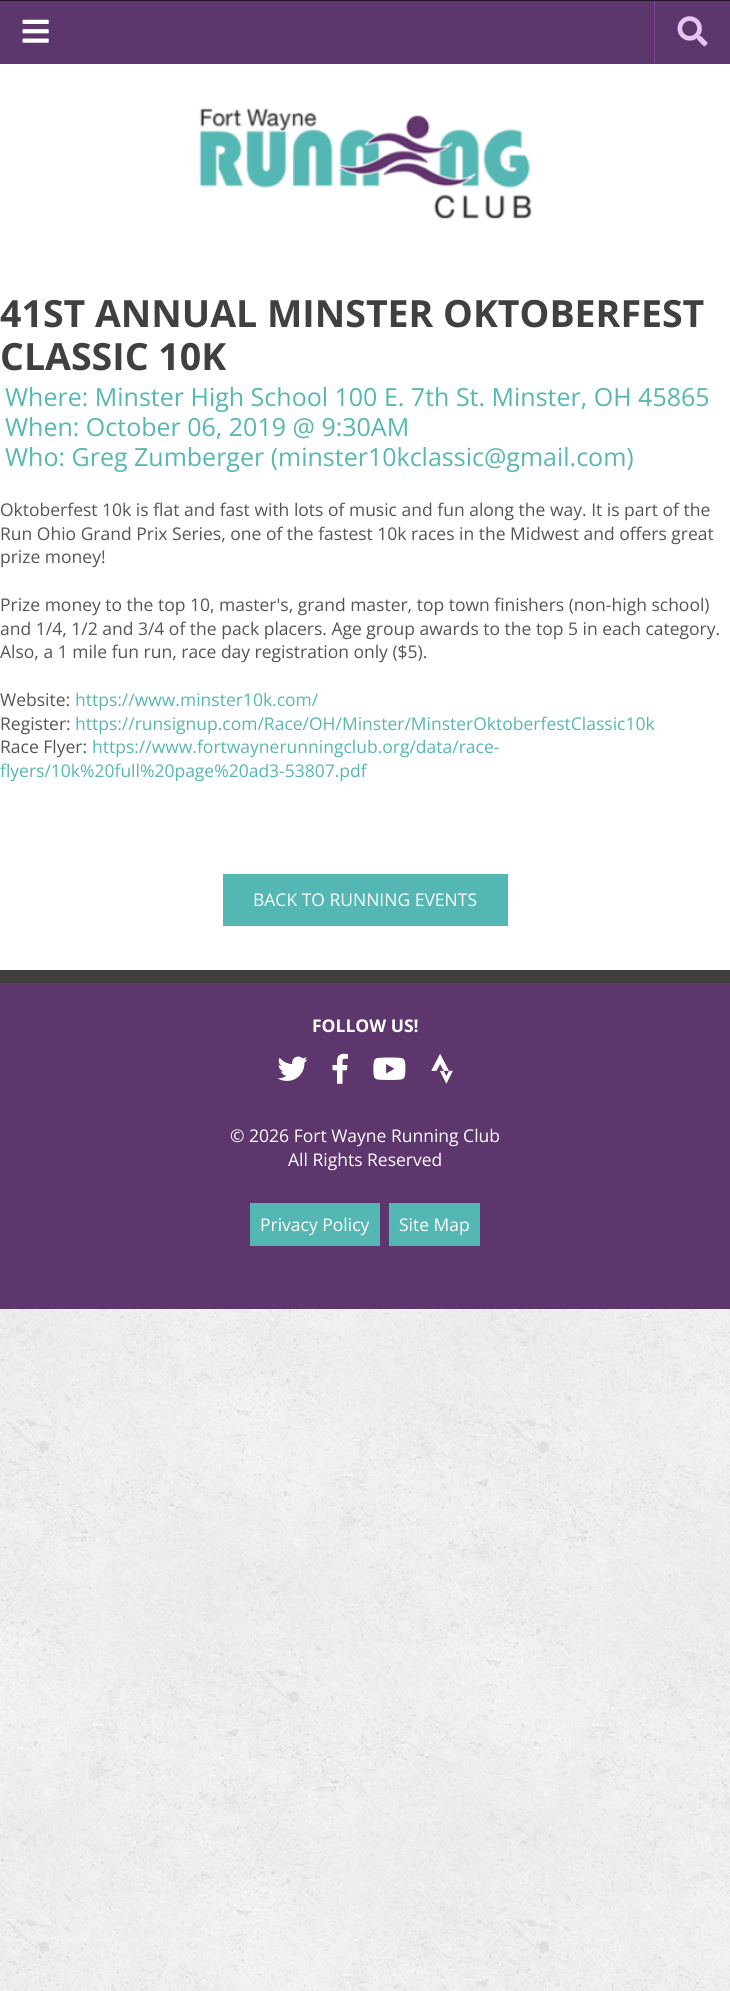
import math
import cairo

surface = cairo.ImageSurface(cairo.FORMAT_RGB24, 730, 1991)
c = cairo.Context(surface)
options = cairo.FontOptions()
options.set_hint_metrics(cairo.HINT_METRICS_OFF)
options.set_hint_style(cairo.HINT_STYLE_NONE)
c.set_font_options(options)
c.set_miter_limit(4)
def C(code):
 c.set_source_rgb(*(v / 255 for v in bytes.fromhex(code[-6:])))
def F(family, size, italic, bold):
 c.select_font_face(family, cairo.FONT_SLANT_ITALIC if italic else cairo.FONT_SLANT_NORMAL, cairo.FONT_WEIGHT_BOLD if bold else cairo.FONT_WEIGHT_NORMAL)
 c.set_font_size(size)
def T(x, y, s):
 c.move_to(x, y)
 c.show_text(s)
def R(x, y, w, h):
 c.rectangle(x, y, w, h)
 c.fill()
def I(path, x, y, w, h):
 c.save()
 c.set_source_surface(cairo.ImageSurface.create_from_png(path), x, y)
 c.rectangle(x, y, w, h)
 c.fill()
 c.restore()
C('ffffff')
c.paint()
I('1.png',0,1309,730,682)
C('24142a')
R(0,0,730,1)
C('5e366e')
R(0,1,730,63)
I('2.png',22,19,27,24)
C('7b4790')
R(654,1,1,62)
I('3.png',677,16,31,31)
I('4.png',199,108,333,111)
F('Open Sans',37.5,0,1)
C('404040')
T(0,327,'41ST ANNUAL MINSTER OKTOBERFEST')
T(0,370,'CLASSIC 10K')
F('Open Sans',25,0,0)
C('55b7b3')
T(5,406,'Where: Minster High School 100 E. 7th St. Minster, OH 45865')
T(5,436,'When: October 06, 2019 @ 9:30AM')
T(5,466,'Who: Greg Zumberger (minster10kclassic@gmail.com)')
F('Open Sans',17.5,0,0)
C('555555')
T(0,516,'Oktoberfest 10k is flat and fast with lots of music and fun along the way. It is part of the')
T(0,540,'Run Ohio Grand Prix Series, one of the fastest 10k races in the Midwest and offers great')
T(0,563,'prize money!')
T(0,611,'Prize money to the top 10, master\'s, grand master, top town finishers (non-high school)')
T(0,635,'and 1/4, 1/2 and 3/4 of the pack placers. Age group awards to the top 5 in each category.')
T(0,658,'Also, a 1 mile fun run, race day registration only ($5).')
T(0,706,'Website:')
C('55b7b3')
T(75,706,'https://www.minster10k.com/')
C('555555')
T(0,730,'Register:')
C('55b7b3')
T(75,730,'https://runsignup.com/Race/OH/Minster/MinsterOktoberfestClassic10k')
C('555555')
T(0,753,'Race Flyer:')
C('55b7b3')
T(92,753,'https://www.fortwaynerunningclub.org/data/race-')
T(0,777,'flyers/10k%20full%20page%20ad3-53807.pdf')
R(223,874,285,52)
C('ffffff')
T(253,906,'BACK TO RUNNING EVENTS')
C('5e366e')
R(0,983,730,326)
C('404040')
R(0,970,730,13)
F('Open Sans',17.5,0,1)
C('ffffff')
T(312,1032,'FOLLOW US!')
I('5.png',277,1056,31,25)
I('6.png',332,1053,16,31)
I('7.png',373,1057,33,23)
I('8.png',431,1053,22,31)
F('Open Sans',17.5,0,0)
T(230,1142,'© 2026 Fort Wayne Running Club')
T(288,1166,'All Rights Reserved')
C('55b7b3')
R(250,1203,130,43)
C('ffffff')
T(260,1231,'Privacy Policy')
C('55b7b3')
R(389,1203,91,43)
C('ffffff')
T(399,1231,'Site Map')
surface.write_to_png('o.png')
